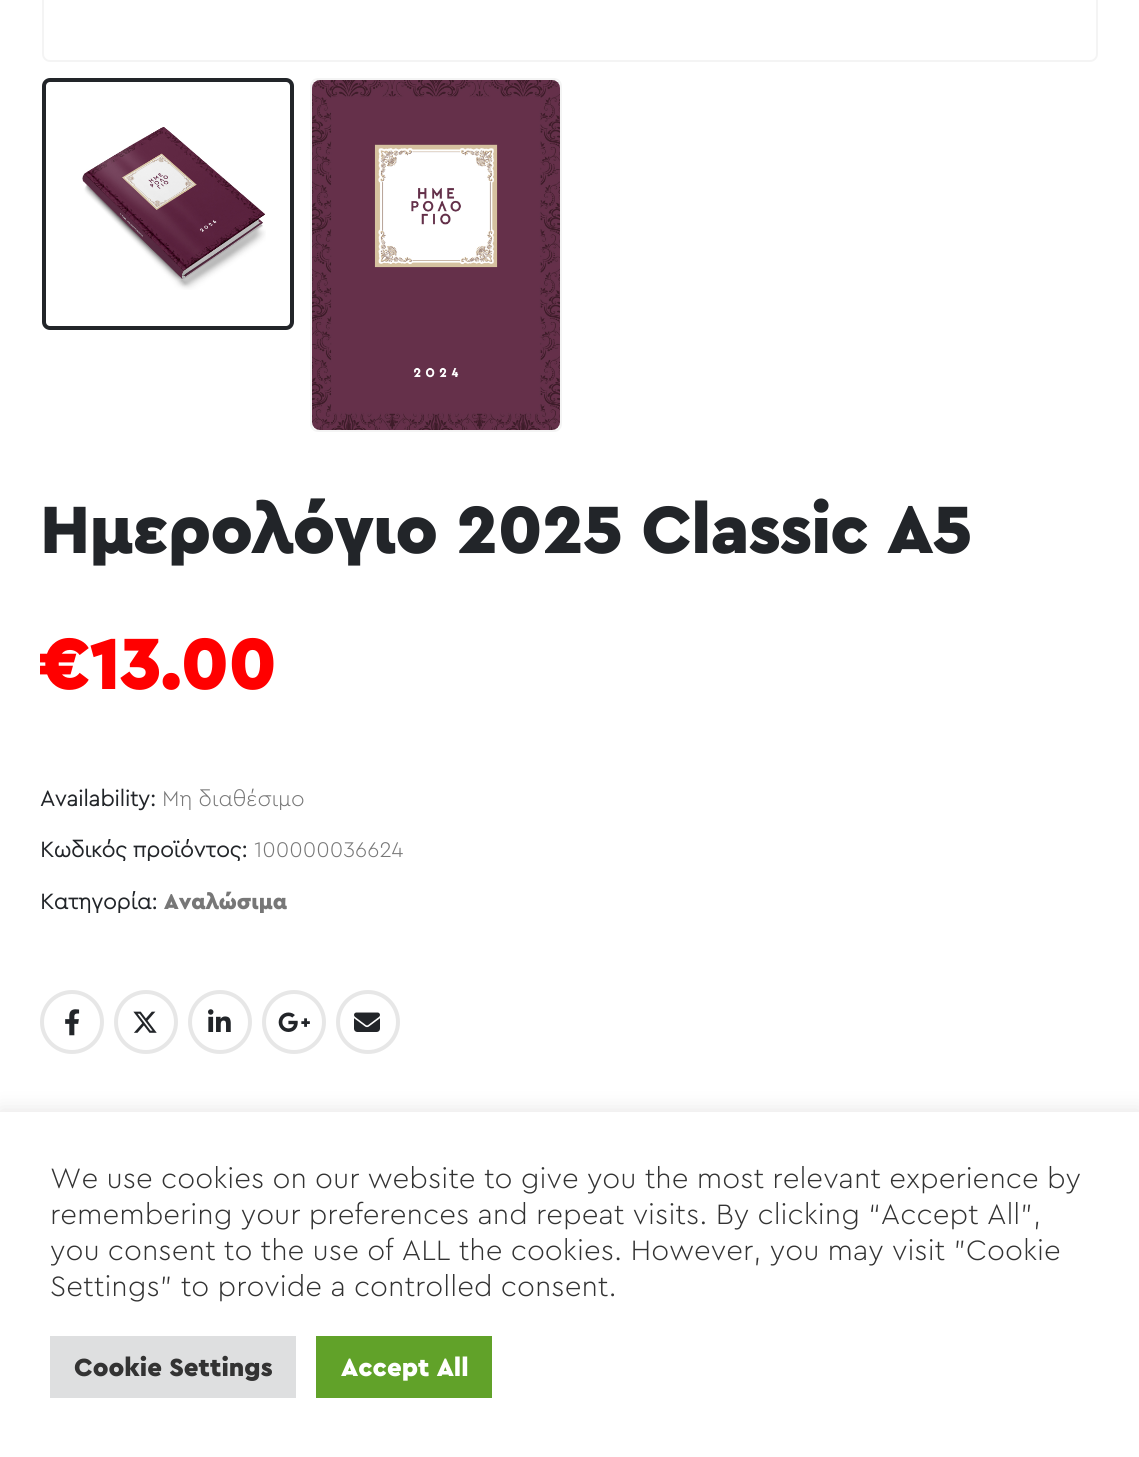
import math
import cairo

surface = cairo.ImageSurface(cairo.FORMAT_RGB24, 1139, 1457)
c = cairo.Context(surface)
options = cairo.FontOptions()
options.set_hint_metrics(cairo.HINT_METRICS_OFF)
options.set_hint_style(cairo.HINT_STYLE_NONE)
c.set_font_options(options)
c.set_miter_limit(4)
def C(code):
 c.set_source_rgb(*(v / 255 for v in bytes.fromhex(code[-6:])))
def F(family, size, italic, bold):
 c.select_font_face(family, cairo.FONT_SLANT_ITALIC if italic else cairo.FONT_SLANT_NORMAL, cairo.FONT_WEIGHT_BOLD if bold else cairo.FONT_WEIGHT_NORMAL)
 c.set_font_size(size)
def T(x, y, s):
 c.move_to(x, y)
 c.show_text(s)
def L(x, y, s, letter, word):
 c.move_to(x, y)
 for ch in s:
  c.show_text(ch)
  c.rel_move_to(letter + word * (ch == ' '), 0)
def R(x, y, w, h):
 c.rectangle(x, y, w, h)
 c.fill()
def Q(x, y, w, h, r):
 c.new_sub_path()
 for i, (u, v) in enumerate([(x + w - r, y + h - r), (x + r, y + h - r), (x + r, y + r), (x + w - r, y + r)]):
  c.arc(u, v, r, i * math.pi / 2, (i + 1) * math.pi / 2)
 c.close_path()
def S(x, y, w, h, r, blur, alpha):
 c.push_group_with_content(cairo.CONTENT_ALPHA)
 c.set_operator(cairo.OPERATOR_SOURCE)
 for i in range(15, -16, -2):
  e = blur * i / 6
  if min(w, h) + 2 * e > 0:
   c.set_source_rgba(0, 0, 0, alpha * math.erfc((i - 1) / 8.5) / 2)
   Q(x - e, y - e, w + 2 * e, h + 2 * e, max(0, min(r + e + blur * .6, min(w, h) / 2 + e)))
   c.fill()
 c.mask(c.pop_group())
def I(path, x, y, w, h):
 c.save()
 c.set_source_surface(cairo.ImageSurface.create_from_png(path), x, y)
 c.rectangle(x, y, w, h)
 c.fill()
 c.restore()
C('ffffff')
c.paint()
Q(43,-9,1054,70,7)
C('f4f4f4')
c.stroke()
Q(44,80,248,248,6)
C('222529')
c.set_line_width(4)
c.stroke()
I('1.png',82,127,184,163)
Q(311,79,250,352,7)
C('f4f4f4')
c.set_line_width(2)
c.stroke()
I('2.png',312,80,248,350)
F('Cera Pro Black',70,0,0)
C('222529')
L(40,553,'Ημερολόγιο 2025 Classic A5',-.7,0)
F('Cera Pro Black',76,0,0)
C('ff0000')
L(40,689,'€13.00',-1.5,0)
F('Cera Pro',22.25,0,1)
C('222529')
T(40,806,'Availability:')
F('Cera Pro Light',22.25,0,0)
C('777777')
T(162,806,'Μη διαθέσιμο')
F('Cera Pro',22.25,0,1)
C('222529')
T(40,857,'Κωδικός προϊόντος:')
F('Cera Pro Light',22.25,0,0)
C('777777')
T(254,857,'100000036624')
F('Cera Pro',22.25,0,1)
C('222529')
T(40,909,'Κατηγορία:')
F('Cera Pro Black',22.25,0,0)
C('777777')
T(164,909,'Αναλώσιμα')
c.new_path()
c.arc(72,1022,30,0,2 * math.pi)
C('e7e7e7')
c.set_line_width(4)
c.stroke()
I('3.png',65,1009,15,27)
c.arc(146,1022,30,0,2 * math.pi)
c.stroke()
I('4.png',133,1011,24,22)
c.arc(220,1022,30,0,2 * math.pi)
c.stroke()
I('5.png',208,1009,23,23)
c.arc(294,1022,30,0,2 * math.pi)
c.stroke()
I('6.png',278,1012,32,20)
c.arc(368,1022,30,0,2 * math.pi)
c.stroke()
I('7.png',354,1012,26,20)
C('acabab')
S(0,1110,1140,346,0,10,.3)
C('ffffff')
R(0,1112,1139,345)
F('Cera Pro Light',29.35,0,0)
C('333333')
T(50,1188,'We use cookies on our website to give you the most relevant experience by')
T(50,1224,'remembering your preferences and repeat visits. By clicking “Accept All”,')
T(50,1260,'you consent to the use of ALL the cookies. However, you may visit "Cookie')
T(50,1296,'Settings" to provide a controlled consent.')
C('dedfe0')
R(50,1336,246,62)
F('Cera Pro Black',26,0,0)
C('333333')
T(74,1376,'Cookie Settings')
C('61a229')
R(316,1336,176,62)
C('ffffff')
T(341,1376,'Accept All')
surface.write_to_png('o.png')
